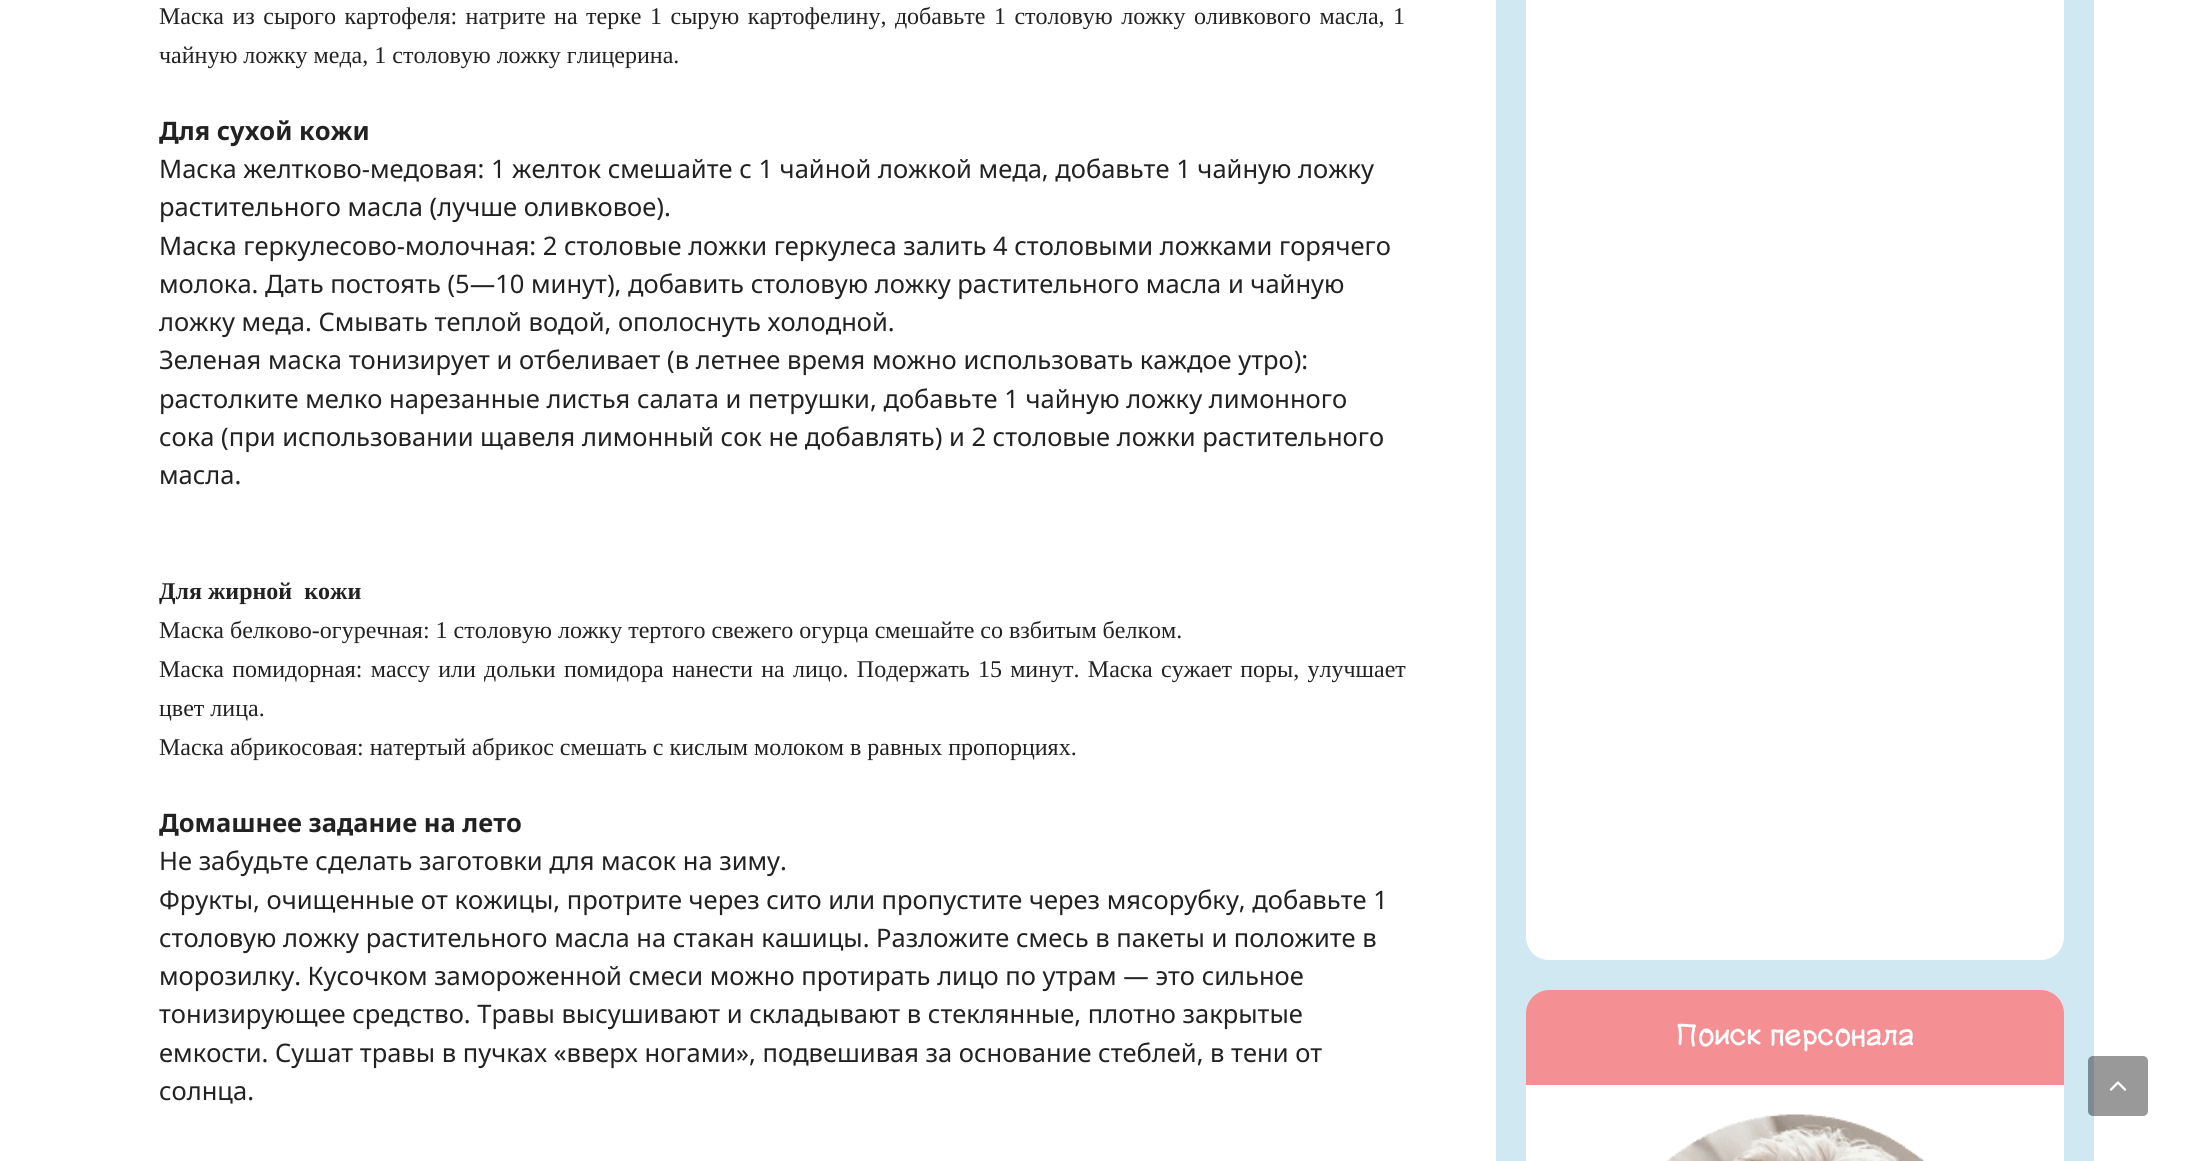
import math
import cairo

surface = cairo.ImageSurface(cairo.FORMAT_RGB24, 2192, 1161)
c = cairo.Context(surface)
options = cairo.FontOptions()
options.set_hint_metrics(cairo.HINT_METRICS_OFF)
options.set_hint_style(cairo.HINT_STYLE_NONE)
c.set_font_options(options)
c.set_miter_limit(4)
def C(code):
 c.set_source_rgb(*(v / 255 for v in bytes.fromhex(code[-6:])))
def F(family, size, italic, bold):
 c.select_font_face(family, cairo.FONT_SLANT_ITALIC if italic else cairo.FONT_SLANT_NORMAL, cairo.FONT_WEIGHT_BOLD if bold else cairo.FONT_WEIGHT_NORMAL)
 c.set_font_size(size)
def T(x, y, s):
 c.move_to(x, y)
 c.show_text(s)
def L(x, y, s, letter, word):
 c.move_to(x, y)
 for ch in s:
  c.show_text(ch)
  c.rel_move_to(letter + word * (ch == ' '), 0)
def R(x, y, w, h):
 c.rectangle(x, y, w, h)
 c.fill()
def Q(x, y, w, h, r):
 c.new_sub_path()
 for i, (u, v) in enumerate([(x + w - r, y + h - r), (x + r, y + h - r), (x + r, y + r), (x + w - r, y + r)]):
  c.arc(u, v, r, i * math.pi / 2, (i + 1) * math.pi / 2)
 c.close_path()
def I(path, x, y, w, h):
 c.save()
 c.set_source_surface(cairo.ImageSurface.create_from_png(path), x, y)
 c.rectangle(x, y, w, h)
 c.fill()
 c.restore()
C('ffffff')
c.paint()
F('Liberation Serif',24,0,0)
C('222222')
L(159,24,'Маска из сырого картофеля: натрите на терке 1 сырую картофелину, добавьте 1 столовую ложку оливкового масла, 1',0,2.5)
T(159,63,'чайную ложку меда, 1 столовую ложку глицерина.')
F('Noto Sans',25.5,0,1)
T(159,140,'Для сухой кожи')
F('Noto Sans',25.5,0,0)
T(159,178,'Маска желтково-медовая: 1 желток смешайте с 1 чайной ложкой меда, добавьте 1 чайную ложку')
T(159,216,'растительного масла (лучше оливковое).')
T(159,255,'Маска геркулесово-молочная: 2 столовые ложки геркулеса залить 4 столовыми ложками горячего')
T(159,293,'молока. Дать постоять (5—10 минут), добавить столовую ложку растительного масла и чайную')
T(159,331,'ложку меда. Смывать теплой водой, ополоснуть холодной.')
T(159,369,'Зеленая маска тонизирует и отбеливает (в летнее время можно использовать каждое утро):')
T(159,408,'растолките мелко нарезанные листья салата и петрушки, добавьте 1 чайную ложку лимонного')
T(159,446,'сока (при использовании щавеля лимонный сок не добавлять) и 2 столовые ложки растительного')
T(159,484,'масла.')
F('Liberation Serif',24,0,1)
T(159,599,'Для жирной  кожи')
F('Liberation Serif',24,0,0)
T(159,638,'Маска белково-огуречная: 1 столовую ложку тертого свежего огурца смешайте со взбитым белком.')
L(159,677,'Маска помидорная: массу или дольки помидора нанести на лицо. Подержать 15 минут. Маска сужает поры, улучшает',0,2.25)
T(159,716,'цвет лица.')
T(159,755,'Маска абрикосовая: натертый абрикос смешать с кислым молоком в равных пропорциях.')
F('Noto Sans',25.5,0,1)
T(159,832,'Домашнее задание на лето')
F('Noto Sans',25.5,0,0)
T(159,870,'Не забудьте сделать заготовки для масок на зиму.')
T(159,909,'Фрукты, очищенные от кожицы, протрите через сито или пропустите через мясорубку, добавьте 1')
T(159,947,'столовую ложку растительного масла на стакан кашицы. Разложите смесь в пакеты и положите в')
T(159,985,'морозилку. Кусочком замороженной смеси можно протирать лицо по утрам — это сильное')
T(159,1023,'тонизирующее средство. Травы высушивают и складывают в стеклянные, плотно закрытые')
T(159,1062,'емкости. Сушат травы в пучках «вверх ногами», подвешивая за основание стеблей, в тени от')
T(159,1100,'солнца.')
C('cfe8f2')
R(1496,0,598,1161)
C('ffffff')
Q(1526,-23,538,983,23)
c.fill()
Q(1526,990,538,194,23)
c.fill()
C('f48f93')
c.new_path()
c.move_to(1549,990)
c.line_to(2041,990)
c.curve_to(2053.5,990,2064,1000.5,2064,1013)
c.line_to(2064,1085)
c.line_to(1526,1085)
c.line_to(1526,1013)
c.curve_to(1526,1000.5,1536.5,990,1549,990)
c.close_path()
c.fill()
F('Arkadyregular',28.5,0,0)
C('ffffff')
T(1676,1045,'Поиск персонала')
I('1.png',1666,1114,259,47)
c.set_source_rgba(0,0,0,0.4)
Q(2088,1056,60,60,5)
c.fill()
I('2.png',2109,1081,18,10)
surface.write_to_png('o.png')
